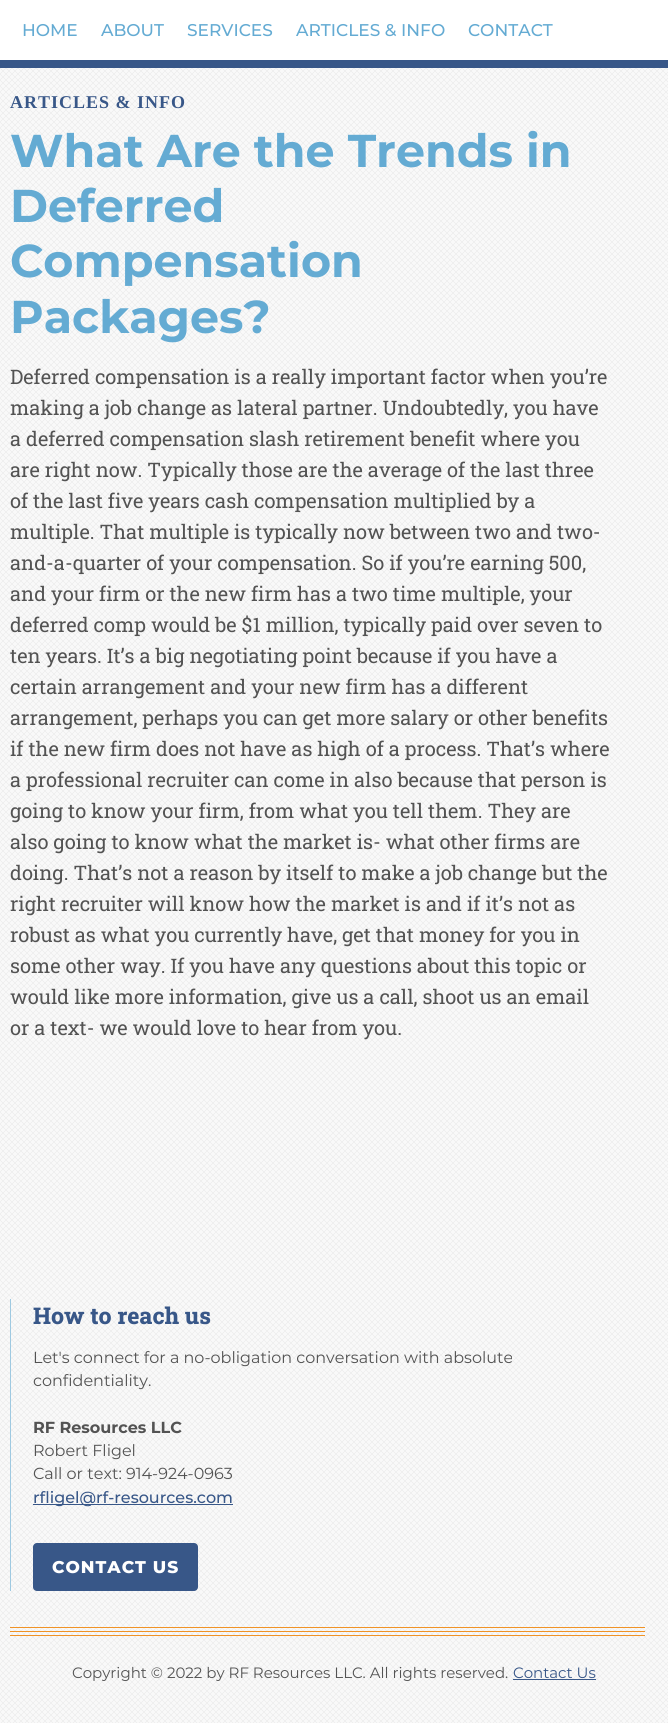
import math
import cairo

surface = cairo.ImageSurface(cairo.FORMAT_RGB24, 668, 1723)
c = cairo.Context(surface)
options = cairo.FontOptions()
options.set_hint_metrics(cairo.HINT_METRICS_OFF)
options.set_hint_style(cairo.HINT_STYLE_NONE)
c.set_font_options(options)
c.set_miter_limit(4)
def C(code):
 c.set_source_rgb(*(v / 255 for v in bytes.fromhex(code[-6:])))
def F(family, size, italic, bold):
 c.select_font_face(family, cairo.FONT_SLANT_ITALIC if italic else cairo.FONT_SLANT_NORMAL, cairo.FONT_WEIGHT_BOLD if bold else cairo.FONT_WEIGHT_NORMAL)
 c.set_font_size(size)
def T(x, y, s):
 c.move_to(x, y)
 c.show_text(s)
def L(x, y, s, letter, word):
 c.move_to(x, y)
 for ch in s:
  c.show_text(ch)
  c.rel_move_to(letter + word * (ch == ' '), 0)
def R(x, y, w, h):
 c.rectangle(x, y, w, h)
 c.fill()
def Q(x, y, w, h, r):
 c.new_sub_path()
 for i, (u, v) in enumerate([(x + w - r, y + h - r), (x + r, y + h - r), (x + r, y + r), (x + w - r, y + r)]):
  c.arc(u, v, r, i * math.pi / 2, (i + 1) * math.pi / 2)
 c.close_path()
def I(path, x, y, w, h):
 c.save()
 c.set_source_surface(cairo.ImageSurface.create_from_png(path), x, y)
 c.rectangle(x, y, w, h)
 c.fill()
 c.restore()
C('ffffff')
c.paint()
I('1.png',0,68,668,1655)
F('Montserrat Medium',17,0,0)
C('64abd3')
T(22,36,'HOME')
T(101,36,'ABOUT')
T(187,36,'SERVICES')
T(296,36,'ARTICLES & INFO')
T(468,36,'CONTACT')
C('385788')
R(0,60,668,8)
F('Liberation Serif',18,0,1)
L(10,108,'ARTICLES & INFO',1,0)
F('Montserrat',46,0,1)
C('64abd3')
T(10,167,'What Are the Trends in')
T(10,222,'Deferred')
T(10,277,'Compensation')
T(10,333,'Packages?')
F('Roboto Slab',20,0,0)
C('535353')
T(10,384,'Deferred compensation is a really important factor when you’re')
T(10,415,'making a job change as lateral partner. Undoubtedly, you have')
T(10,446,'a deferred compensation slash retirement benefit where you')
T(10,477,'are right now. Typically those are the average of the last three')
T(10,508,'of the last five years cash compensation multiplied by a')
T(10,539,'multiple. That multiple is typically now between two and two-')
T(10,570,'and-a-quarter of your compensation. So if you’re earning 500,')
T(10,601,'and your firm or the new firm has a two time multiple, your')
T(10,632,'deferred comp would be $1 million, typically paid over seven to')
T(10,663,'ten years. It’s a big negotiating point because if you have a')
T(10,694,'certain arrangement and your new firm has a different')
T(10,725,'arrangement, perhaps you can get more salary or other benefits')
T(10,756,'if the new firm does not have as high of a process. That’s where')
T(10,787,'a professional recruiter can come in also because that person is')
T(10,818,'going to know your firm, from what you tell them. They are')
T(10,849,'also going to know what the market is- what other firms are')
T(10,880,'doing. That’s not a reason by itself to make a job change but the')
T(10,911,'right recruiter will know how the market is and if it’s not as')
T(10,942,'robust as what you currently have, get that money for you in')
T(10,973,'some other way. If you have any questions about this topic or')
T(10,1004,'would like more information, give us a call, shoot us an email')
T(10,1035,'or a text- we would love to hear from you.')
c.set_source_rgba(0.392,0.671,0.827,0.6)
R(10,1299,1,292)
F('Roboto Slab ExtraBold',23,0,0)
C('385788')
T(33,1324,'How to reach us')
F('Montserrat',16,0,0)
C('535353')
T(33,1363,'Let\'s connect for a no-obligation conversation with absolute')
T(33,1386,'confidentiality.')
F('Montserrat',16,0,1)
T(33,1433,'RF Resources LLC')
F('Montserrat',16,0,0)
T(33,1456,'Robert Fligel')
T(33,1479,'Call or text: 914-924-0963')
C('385788')
R(33,1504,200,1)
F('Montserrat Medium',16,0,0)
T(33,1503,'rfligel@rf-resources.com')
Q(33,1543,165,48,4)
c.fill()
F('Montserrat ExtraBold',17,0,0)
C('ffffff')
L(52,1573,'CONTACT US',1,0)
I('2.png',10,1627,635,9)
F('Montserrat',15,0,0)
C('535353')
T(72,1678,'Copyright © 2022 by RF Resources LLC. All rights reserved.')
C('385788')
T(513,1678,'Contact Us')
R(513,1679,83,1)
surface.write_to_png('o.png')
